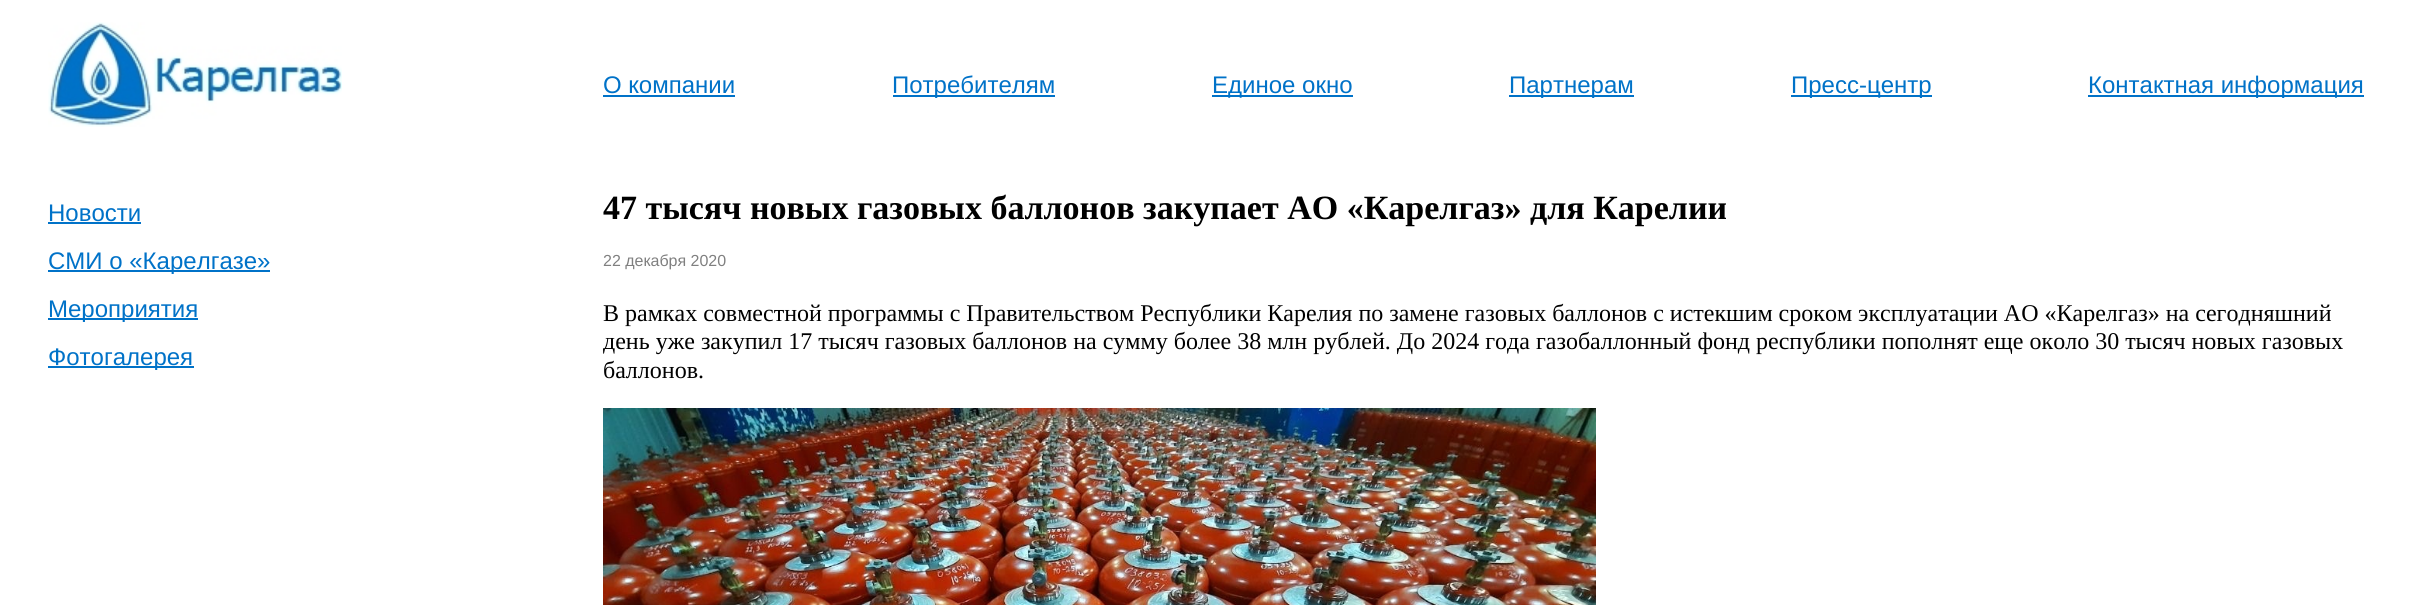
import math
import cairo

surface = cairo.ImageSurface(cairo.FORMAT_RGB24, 2411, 605)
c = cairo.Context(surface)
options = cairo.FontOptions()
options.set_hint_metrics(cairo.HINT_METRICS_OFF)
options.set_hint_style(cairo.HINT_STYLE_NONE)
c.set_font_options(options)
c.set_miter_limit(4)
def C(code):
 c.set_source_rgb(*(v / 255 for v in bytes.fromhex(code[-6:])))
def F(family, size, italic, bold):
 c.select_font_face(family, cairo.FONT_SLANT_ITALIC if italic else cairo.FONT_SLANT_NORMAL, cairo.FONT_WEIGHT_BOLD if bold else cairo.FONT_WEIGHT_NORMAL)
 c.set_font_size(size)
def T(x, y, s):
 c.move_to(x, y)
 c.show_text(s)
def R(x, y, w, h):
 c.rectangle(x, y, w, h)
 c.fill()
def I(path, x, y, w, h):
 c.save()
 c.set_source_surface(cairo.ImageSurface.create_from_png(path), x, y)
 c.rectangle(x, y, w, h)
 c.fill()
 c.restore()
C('ffffff')
c.paint()
I('1.png',48,22,294,105)
F('Liberation Sans',24,0,0)
C('0072c8')
T(603,93,'О компании')
R(603,95,132,2)
R(893,95,162,2)
T(892,93,'Потребителям')
R(1212,95,141,2)
T(1212,93,'Единое окно')
R(1509,95,125,2)
T(1509,93,'Партнерам')
R(1791,95,141,2)
T(1791,93,'Пресс-центр')
R(2088,95,276,2)
T(2088,93,'Контактная информация')
T(48,221,'Новости')
R(48,222,93,2)
R(48,270,222,2)
T(48,269,'СМИ о «Карелгазе»')
R(48,318,150,2)
T(48,317,'Мероприятия')
R(48,366,146,2)
T(48,365,'Фотогалерея')
F('Liberation Serif',34,0,1)
C('000000')
T(603,219,'47 тысяч новых газовых баллонов закупает АО «Карелгаз» для Карелии')
F('Liberation Sans',16,0,0)
C('808080')
T(603,266,'22 декабря 2020')
F('Liberation Serif',24,0,0)
C('000000')
T(603,321,'В рамках совместной программы с Правительством Республики Карелия по замене газовых баллонов с истекшим сроком эксплуатации АО «Карелгаз» на сегодняшний')
T(603,349,'день уже закупил 17 тысяч газовых баллонов на сумму более 38 млн рублей. До 2024 года газобаллонный фонд республики пополнят еще около 30 тысяч новых газовых')
T(603,378,'баллонов.')
I('2.png',603,408,993,197)
surface.write_to_png('o.png')
